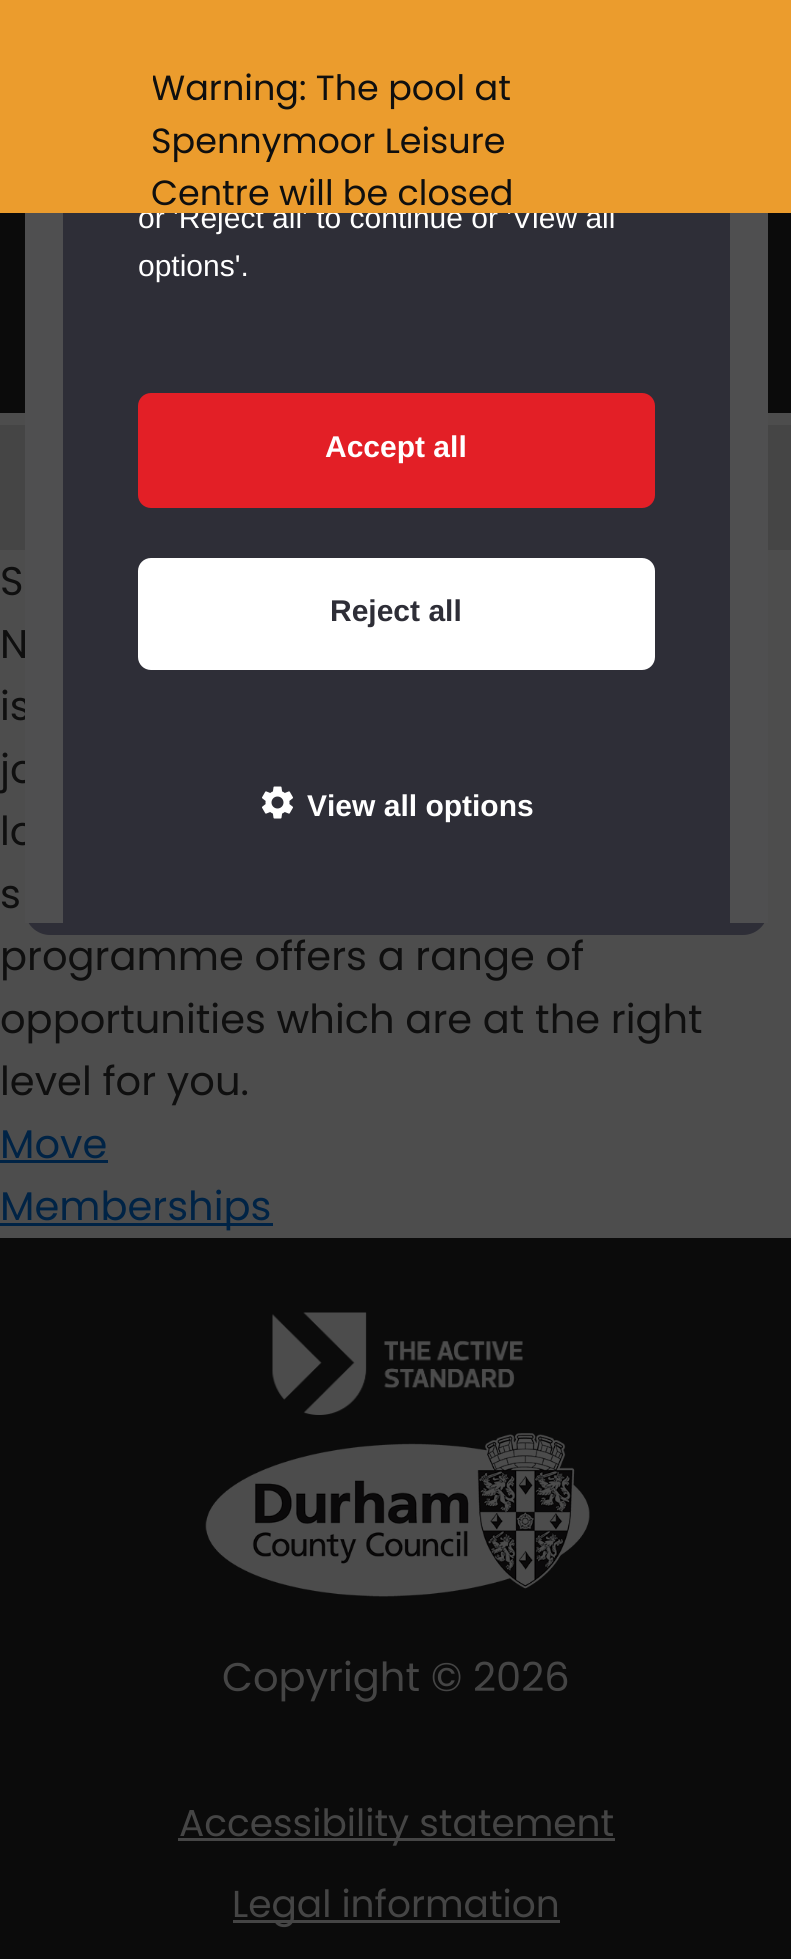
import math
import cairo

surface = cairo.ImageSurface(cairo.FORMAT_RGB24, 791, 1959)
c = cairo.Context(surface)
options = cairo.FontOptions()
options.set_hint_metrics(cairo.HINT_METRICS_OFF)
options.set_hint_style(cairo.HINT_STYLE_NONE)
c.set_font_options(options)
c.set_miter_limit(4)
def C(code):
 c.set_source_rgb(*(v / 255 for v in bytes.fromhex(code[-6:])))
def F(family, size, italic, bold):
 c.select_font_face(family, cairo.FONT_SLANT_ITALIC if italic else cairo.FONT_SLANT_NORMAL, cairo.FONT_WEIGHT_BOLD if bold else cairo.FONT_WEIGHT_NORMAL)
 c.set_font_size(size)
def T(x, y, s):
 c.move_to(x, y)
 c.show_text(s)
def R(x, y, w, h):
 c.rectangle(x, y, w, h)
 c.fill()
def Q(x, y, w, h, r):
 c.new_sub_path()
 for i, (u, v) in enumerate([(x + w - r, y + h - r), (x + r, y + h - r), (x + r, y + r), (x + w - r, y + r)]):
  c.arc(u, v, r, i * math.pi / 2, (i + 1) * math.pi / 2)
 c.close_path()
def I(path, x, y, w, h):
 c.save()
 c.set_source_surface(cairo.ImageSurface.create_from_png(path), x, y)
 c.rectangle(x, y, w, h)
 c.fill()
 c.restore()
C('4d4d4d')
c.paint()
C('0b0b0b')
R(0,213,791,200)
C('454545')
R(0,425,791,125)
F('Poppins',40,0,0)
C('0f0f0f')
T(0,720,'is')
T(0,783,'jo')
T(0,845,'lo')
C('2e2e37')
Q(25,25,743,910,25)
c.fill()
F('Liberation Sans',30,0,0)
C('ffffff')
T(138,228,'or \'Reject all\' to continue or \'View all')
C('eb9c2d')
R(0,0,791,213)
c.save()
c.rectangle(153,0,465,213)
c.clip()
F('Poppins',35,0,0)
C('0f0f0f')
T(151,100,'Warning: The pool at')
c.restore()
F('Poppins',35,0,0)
C('0f0f0f')
T(151,153,'Spennymoor Leisure')
T(151,205,'Centre will be closed')
C('4f4f50')
R(730,213,38,710)
R(25,213,38,710)
F('Liberation Sans',30,0,0)
C('ffffff')
T(138,276,'options\'.')
C('e31f26')
Q(139.5,394.5,514,112,11.5)
c.fill_preserve()
c.set_line_width(3)
c.stroke()
F('Liberation Sans',30,0,1)
C('ffffff')
T(325,457,'Accept all')
Q(139.5,559.5,514,109,11.5)
c.fill_preserve()
c.stroke()
C('2e2e37')
T(330,621,'Reject all')
I('1.png',262,786,31,33)
C('ffffff')
T(307,816,'View all options')
F('Poppins',40,0,0)
C('0f0f0f')
T(0,595,'S')
T(0,658,'N')
T(0,908,'s')
T(0,970,'programme offers a range of')
T(0,1033,'opportunities which are at the right')
T(0,1095,'level for you.')
C('002345')
T(0,1158,'Move')
R(0,1160,108,3)
R(0,1223,273,3)
T(0,1220,'Memberships')
C('0b0b0b')
R(0,1238,791,721)
I('2.png',272,1312,251,103)
I('3.png',205,1433,385,164)
C('454545')
T(222,1691,'Copyright © 2026')
R(178,1838,437,3)
F('Poppins',37.5,0,0)
T(179,1836,'Accessibility statement')
R(233,1920,327,3)
T(232,1917,'Legal information')
surface.write_to_png('o.png')
